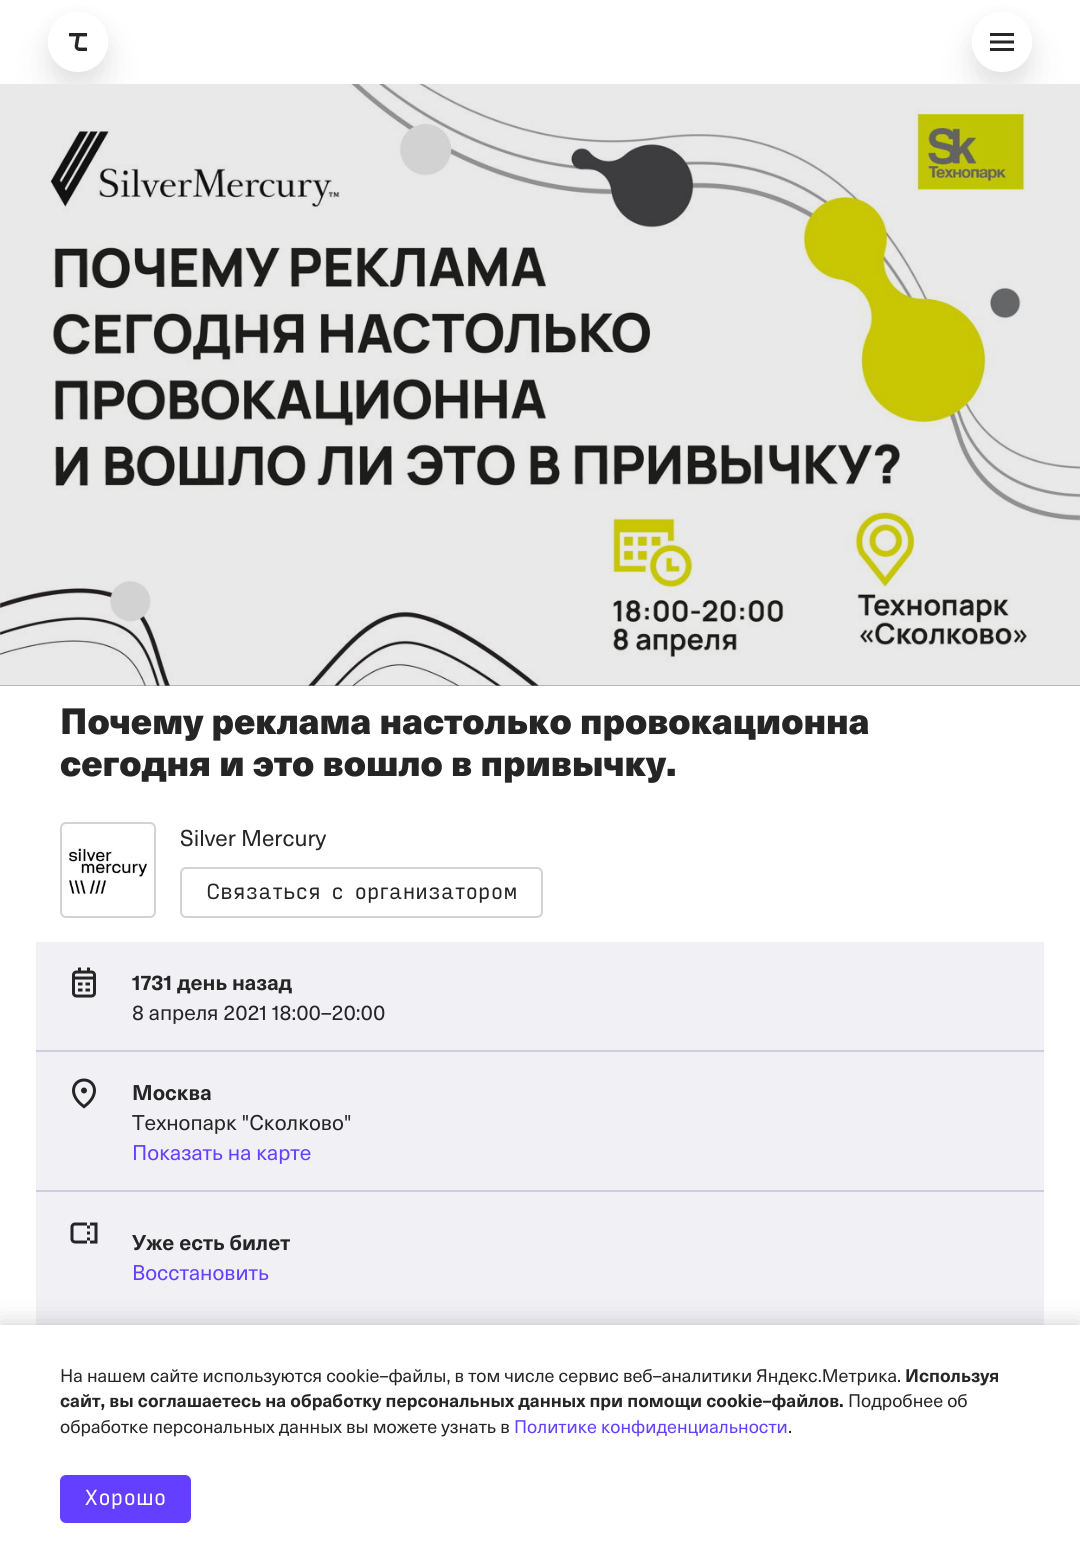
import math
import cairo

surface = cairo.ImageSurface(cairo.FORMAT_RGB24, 1080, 1546)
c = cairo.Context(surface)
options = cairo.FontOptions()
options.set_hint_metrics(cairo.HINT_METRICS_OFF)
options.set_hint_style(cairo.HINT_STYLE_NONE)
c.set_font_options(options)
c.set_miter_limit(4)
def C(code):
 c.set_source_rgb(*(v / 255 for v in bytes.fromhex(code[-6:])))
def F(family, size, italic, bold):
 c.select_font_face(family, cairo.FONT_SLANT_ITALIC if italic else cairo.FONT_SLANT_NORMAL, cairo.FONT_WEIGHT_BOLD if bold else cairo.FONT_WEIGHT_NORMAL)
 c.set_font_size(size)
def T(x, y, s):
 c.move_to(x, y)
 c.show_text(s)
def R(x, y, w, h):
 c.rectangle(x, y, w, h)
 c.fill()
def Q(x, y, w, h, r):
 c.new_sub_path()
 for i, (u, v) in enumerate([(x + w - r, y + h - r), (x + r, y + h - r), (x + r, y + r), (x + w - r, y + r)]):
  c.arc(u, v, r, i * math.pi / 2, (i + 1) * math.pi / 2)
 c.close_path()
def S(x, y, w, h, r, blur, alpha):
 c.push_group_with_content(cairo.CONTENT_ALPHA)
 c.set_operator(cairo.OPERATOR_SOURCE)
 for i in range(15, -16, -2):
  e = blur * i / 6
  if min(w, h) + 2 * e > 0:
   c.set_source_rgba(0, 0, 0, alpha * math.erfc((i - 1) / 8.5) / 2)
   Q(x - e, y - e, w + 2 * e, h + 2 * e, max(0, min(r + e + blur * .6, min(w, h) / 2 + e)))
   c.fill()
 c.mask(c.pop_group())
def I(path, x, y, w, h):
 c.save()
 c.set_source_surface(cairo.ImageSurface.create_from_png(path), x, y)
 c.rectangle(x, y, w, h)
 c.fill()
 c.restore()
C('ffffff')
c.paint()
c.save()
c.set_fill_rule(cairo.FILL_RULE_EVEN_ODD)
c.new_path()
c.move_to(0,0)
c.line_to(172,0)
c.line_to(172,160)
c.line_to(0,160)
c.close_path()
c.move_to(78,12)
c.curve_to(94.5,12,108,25.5,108,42)
c.curve_to(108,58.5,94.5,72,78,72)
c.curve_to(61.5,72,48,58.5,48,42)
c.curve_to(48,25.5,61.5,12,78,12)
c.close_path()
c.clip()
C('000000')
S(48,36,60,60,30,21,.07)
c.restore()
c.save()
c.set_fill_rule(cairo.FILL_RULE_EVEN_ODD)
c.new_path()
c.move_to(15,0)
c.line_to(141,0)
c.line_to(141,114)
c.line_to(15,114)
c.close_path()
c.move_to(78,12)
c.curve_to(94.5,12,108,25.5,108,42)
c.curve_to(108,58.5,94.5,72,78,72)
c.curve_to(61.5,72,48,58.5,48,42)
c.curve_to(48,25.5,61.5,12,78,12)
c.close_path()
c.clip()
C('000000')
S(48,21,60,60,30,10.5,.06)
c.restore()
I('1.png',69,33,18,18)
c.save()
c.set_fill_rule(cairo.FILL_RULE_EVEN_ODD)
c.new_path()
c.move_to(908,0)
c.line_to(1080,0)
c.line_to(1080,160)
c.line_to(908,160)
c.close_path()
c.move_to(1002,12)
c.curve_to(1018.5,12,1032,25.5,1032,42)
c.curve_to(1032,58.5,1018.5,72,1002,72)
c.curve_to(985.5,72,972,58.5,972,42)
c.curve_to(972,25.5,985.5,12,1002,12)
c.close_path()
c.clip()
C('000000')
S(972,36,60,60,30,21,.07)
c.restore()
c.save()
c.set_fill_rule(cairo.FILL_RULE_EVEN_ODD)
c.new_path()
c.move_to(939,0)
c.line_to(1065,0)
c.line_to(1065,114)
c.line_to(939,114)
c.close_path()
c.move_to(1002,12)
c.curve_to(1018.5,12,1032,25.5,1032,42)
c.curve_to(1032,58.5,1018.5,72,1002,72)
c.curve_to(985.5,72,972,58.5,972,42)
c.curve_to(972,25.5,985.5,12,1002,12)
c.close_path()
c.clip()
C('000000')
S(972,21,60,60,30,10.5,.06)
c.restore()
I('2.png',990,33,24,18)
C('929292')
R(0,685,1080,1)
I('3.png',0,84,1080,602)
c.set_source_rgba(0.145,0.145,0.145,0.1)
R(0,84,1080,602)
F('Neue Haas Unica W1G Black',36,0,0)
C('252525')
T(60,734,'Почему реклама настолько провокационна')
T(60,776,'сегодня и это вошло в привычку.')
I('4.png',69,848,78,46)
Q(61,823,94,94,5)
C('d3d3d3')
c.stroke()
F('Neue Haas Unica W1G',22.5,0,0)
C('252525')
T(180,846,'Silver Mercury')
Q(181,868,361,49,5)
C('d3d3d3')
c.stroke()
F('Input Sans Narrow',21,0,0)
C('252525')
T(206,899,'Связаться с организатором')
C('f1f0f5')
R(36,942,1008,108)
I('5.png',72,967,24,31)
F('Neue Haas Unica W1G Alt',21,0,1)
C('252525')
T(132,990,'1731 день назад')
F('Neue Haas Unica W1G Alt',21,0,0)
T(132,1020,'8 апреля 2021 18:00–20:00')
C('f1f0f5')
R(36,1052,1008,138)
C('cecdde')
R(36,1050,1008,2)
I('6.png',72,1078,24,31)
F('Neue Haas Unica W1G',21,0,1)
C('252525')
T(132,1100,'Москва')
F('Neue Haas Unica W1G',21,0,0)
T(132,1130,'Технопарк "Сколково"')
C('643fff')
T(132,1160,'Показать на карте')
C('f1f0f5')
R(36,1192,1008,133)
C('cecdde')
R(36,1190,1008,2)
I('7.png',70,1222,28,22)
F('Neue Haas Unica W1G',21,0,1)
C('252525')
T(132,1250,'Уже есть билет')
F('Neue Haas Unica W1G',21,0,0)
C('643fff')
T(132,1280,'Восстановить')
C('000000')
S(0,1325,1080,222,0,12,.2)
C('ffffff')
R(0,1325,1080,221)
F('Neue Haas Unica W1G',18,0,0)
C('252525')
T(60,1382,'На нашем сайте используются cookie–файлы, в том числе сервис веб–аналитики Яндекс.Метрика.')
F('Neue Haas Unica W1G',18,0,1)
T(905,1382,'Используя')
T(60,1407,'сайт, вы соглашаетесь на обработку персональных данных при помощи cookie–файлов.')
F('Neue Haas Unica W1G',18,0,0)
T(848,1407,'Подробнее об')
T(60,1433,'обработке персональных данных вы можете узнать в')
C('643fff')
T(514,1433,'Политике конфиденциальности')
C('252525')
T(788,1433,'.')
C('643fff')
Q(60,1475,131,48,6)
c.fill()
F('Input Sans Narrow',21,0,0)
C('ffffff')
T(84,1505,'Хорошо')
surface.write_to_png('o.png')
